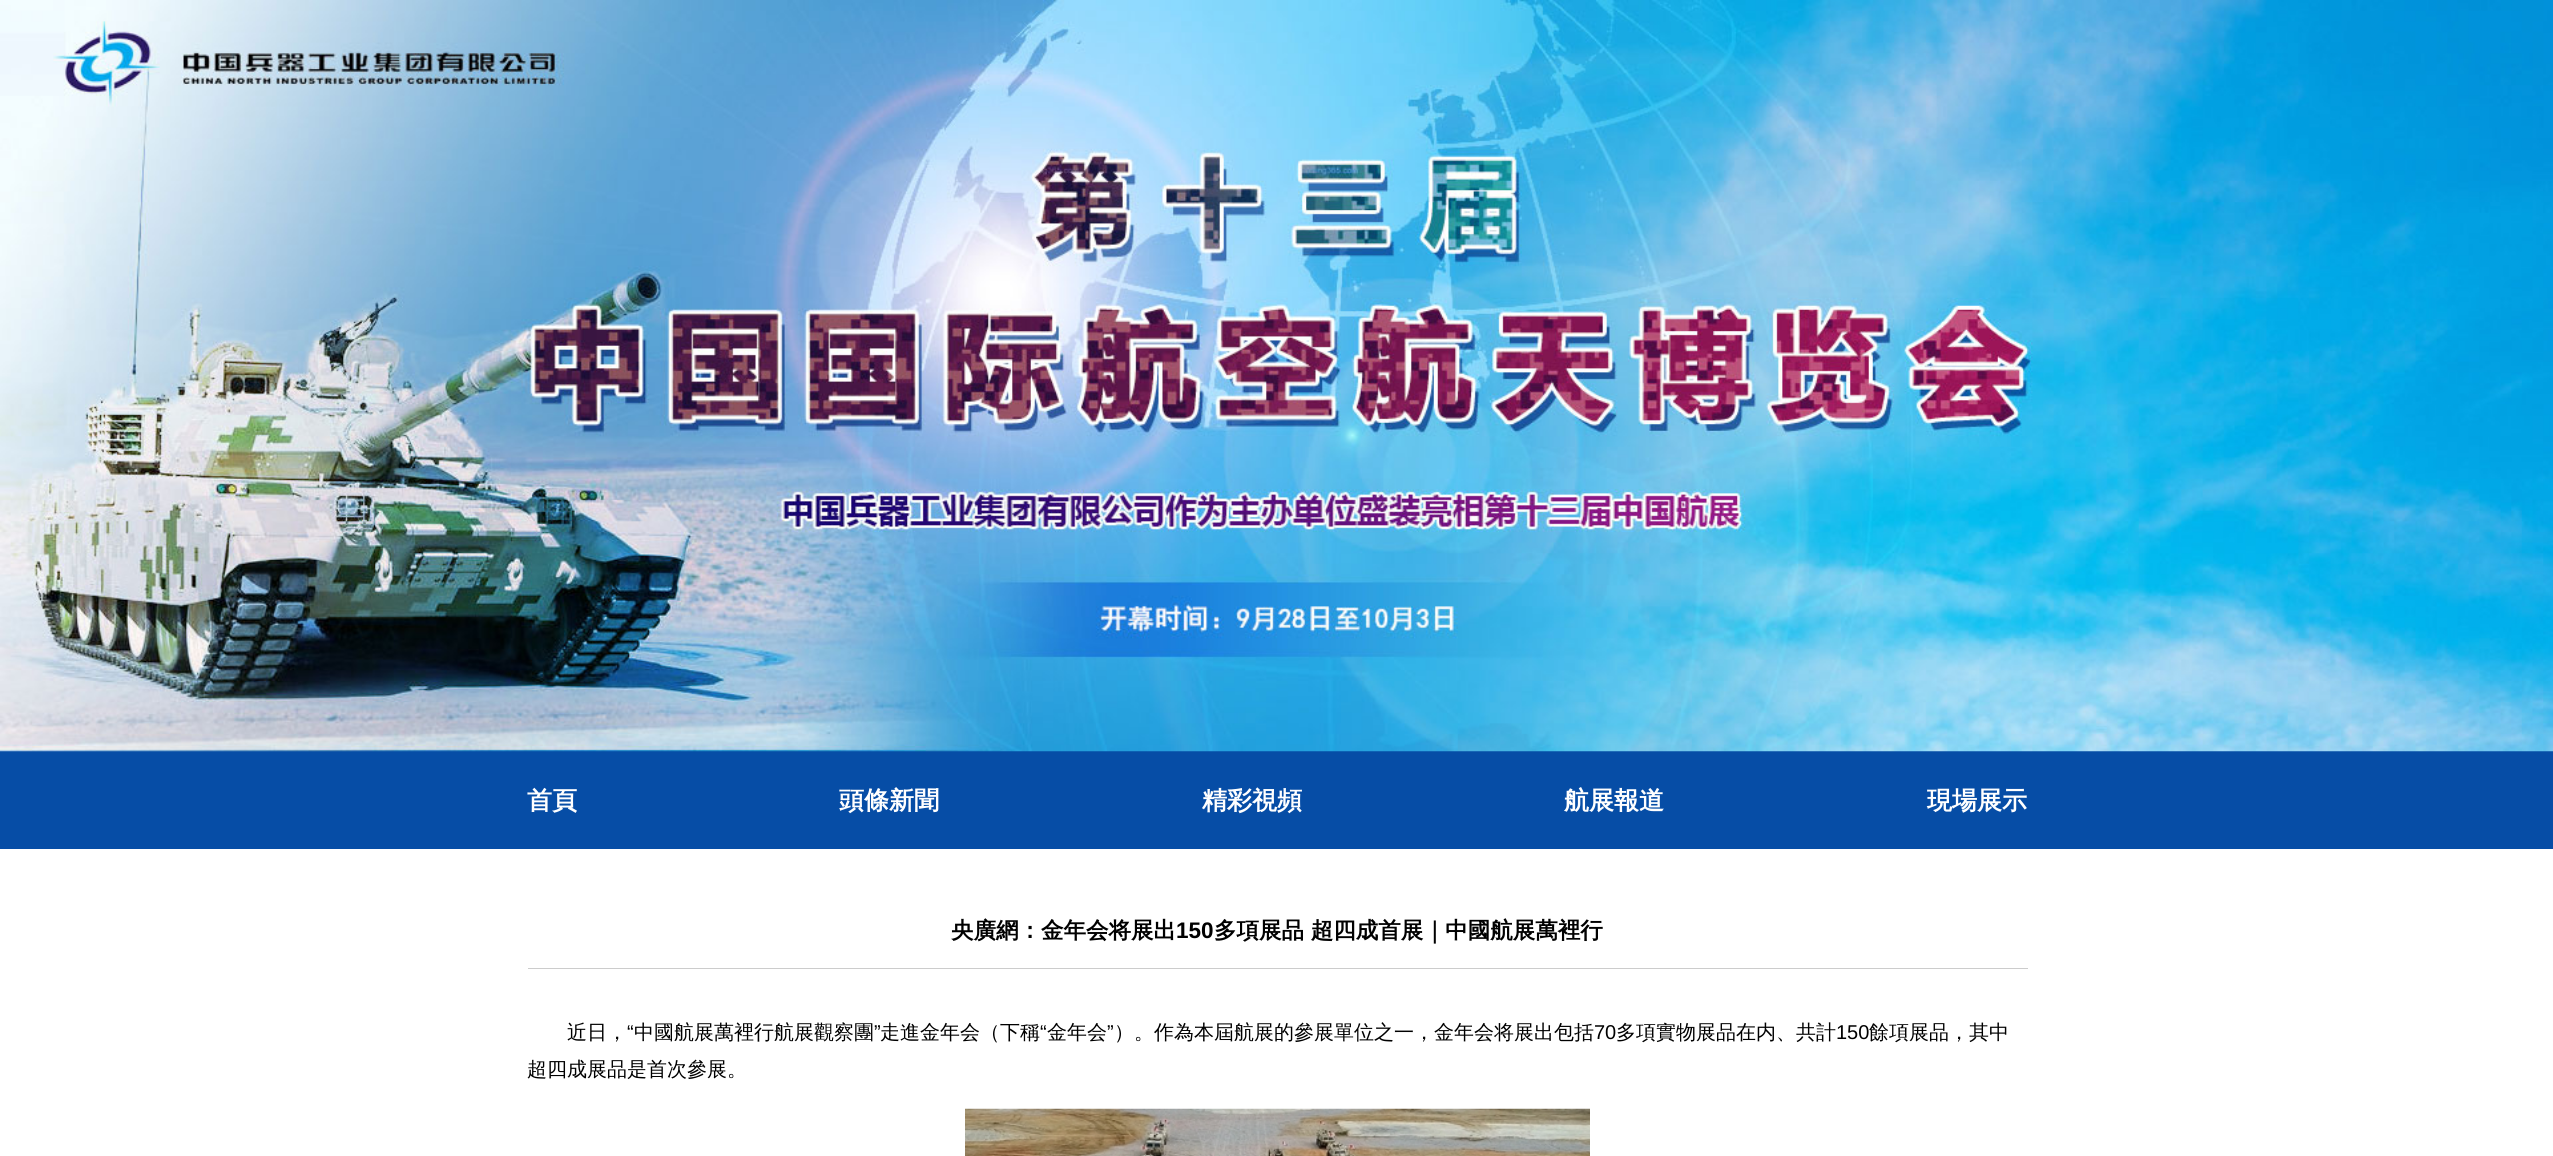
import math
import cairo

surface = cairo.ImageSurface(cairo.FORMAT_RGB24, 2553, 1156)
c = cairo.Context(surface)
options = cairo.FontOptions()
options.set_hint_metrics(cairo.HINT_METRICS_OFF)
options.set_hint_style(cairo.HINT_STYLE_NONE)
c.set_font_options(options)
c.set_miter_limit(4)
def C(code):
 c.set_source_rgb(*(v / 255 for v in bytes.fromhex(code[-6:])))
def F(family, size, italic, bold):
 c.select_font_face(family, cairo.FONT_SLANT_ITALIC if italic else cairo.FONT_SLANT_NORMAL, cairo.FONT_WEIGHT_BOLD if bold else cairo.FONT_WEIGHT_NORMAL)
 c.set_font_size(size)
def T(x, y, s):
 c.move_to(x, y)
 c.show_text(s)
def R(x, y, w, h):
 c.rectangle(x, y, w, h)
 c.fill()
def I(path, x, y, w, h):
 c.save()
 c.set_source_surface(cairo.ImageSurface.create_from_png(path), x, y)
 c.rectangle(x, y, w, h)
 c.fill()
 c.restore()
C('ffffff')
c.paint()
C('064da6')
R(0,751,2553,98)
I('1.png',0,0,2553,752)
F('WenQuanYi Zen Hei',25,0,1)
C('ffffff')
T(527,809,'首頁')
T(839,809,'頭條新聞')
T(1202,809,'精彩視頻')
T(1564,809,'航展報道')
T(1927,809,'現場展示')
C('cccccc')
R(528,968,1500,1)
F('WenQuanYi Zen Hei',22.5,0,1)
C('000000')
T(951,938,'央廣網：金年会将展出')
F('Liberation Sans',22.5,0,1)
T(1176,938,'150')
F('WenQuanYi Zen Hei',22.5,0,1)
T(1214,938,'多項展品 超四成首展｜中國航展萬裡行')
F('WenQuanYi Zen Hei Medium',20,0,0)
T(567,1039,'近日，')
F('Liberation Sans',20,0,0)
T(627,1039,'“')
F('WenQuanYi Zen Hei Medium',20,0,0)
T(634,1039,'中國航展萬裡行航展觀察團')
F('Liberation Sans',20,0,0)
T(874,1039,'”')
F('WenQuanYi Zen Hei Medium',20,0,0)
T(880,1039,'走進金年会（下稱')
F('Liberation Sans',20,0,0)
T(1040,1039,'“')
F('WenQuanYi Zen Hei Medium',20,0,0)
T(1047,1039,'金年会')
F('Liberation Sans',20,0,0)
T(1107,1039,'”')
F('WenQuanYi Zen Hei Medium',20,0,0)
T(1114,1039,'）。作為本屆航展的參展單位之一，金年会将展出包括')
F('Liberation Sans',20,0,0)
T(1594,1039,'70')
F('WenQuanYi Zen Hei Medium',20,0,0)
T(1616,1039,'多項實物展品在内、共計')
F('Liberation Sans',20,0,0)
T(1836,1039,'150')
F('WenQuanYi Zen Hei Medium',20,0,0)
T(1869,1039,'餘項展品，其中')
T(527,1076,'超四成展品是首次參展。')
I('2.png',965,1108,625,48)
surface.write_to_png('o.png')
